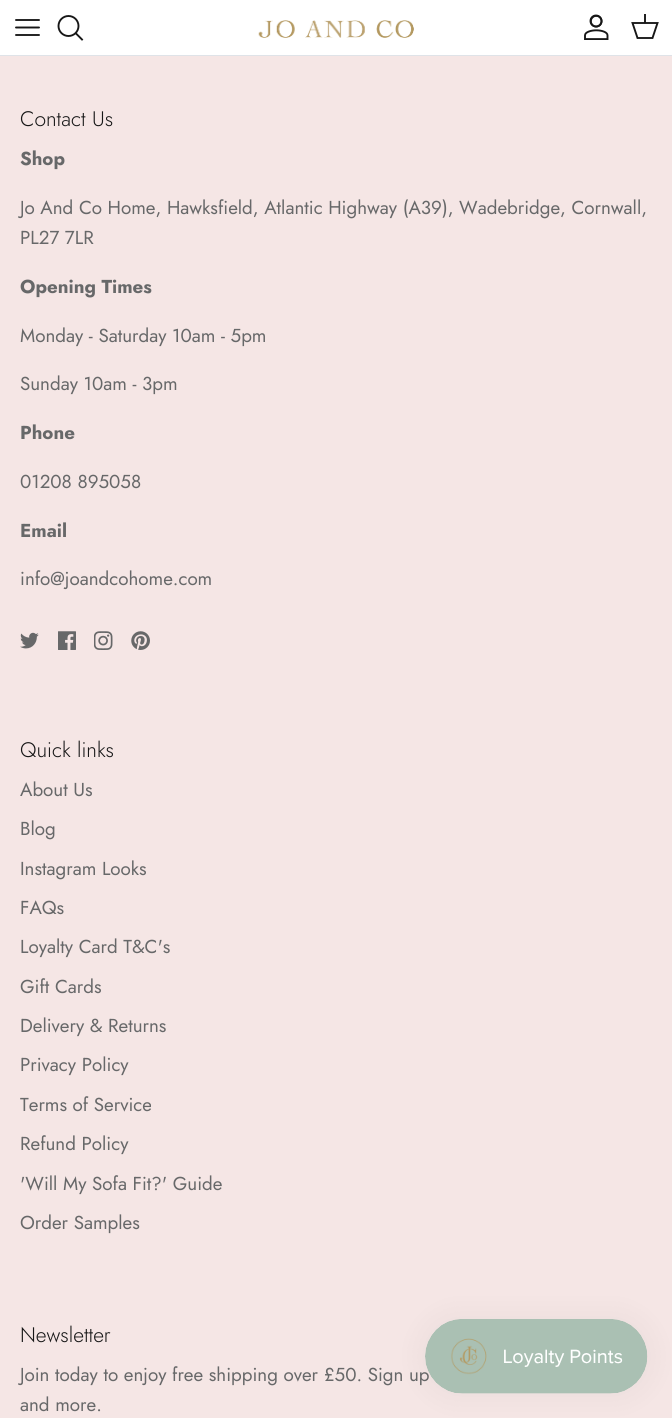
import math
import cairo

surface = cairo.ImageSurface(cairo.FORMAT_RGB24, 672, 1418)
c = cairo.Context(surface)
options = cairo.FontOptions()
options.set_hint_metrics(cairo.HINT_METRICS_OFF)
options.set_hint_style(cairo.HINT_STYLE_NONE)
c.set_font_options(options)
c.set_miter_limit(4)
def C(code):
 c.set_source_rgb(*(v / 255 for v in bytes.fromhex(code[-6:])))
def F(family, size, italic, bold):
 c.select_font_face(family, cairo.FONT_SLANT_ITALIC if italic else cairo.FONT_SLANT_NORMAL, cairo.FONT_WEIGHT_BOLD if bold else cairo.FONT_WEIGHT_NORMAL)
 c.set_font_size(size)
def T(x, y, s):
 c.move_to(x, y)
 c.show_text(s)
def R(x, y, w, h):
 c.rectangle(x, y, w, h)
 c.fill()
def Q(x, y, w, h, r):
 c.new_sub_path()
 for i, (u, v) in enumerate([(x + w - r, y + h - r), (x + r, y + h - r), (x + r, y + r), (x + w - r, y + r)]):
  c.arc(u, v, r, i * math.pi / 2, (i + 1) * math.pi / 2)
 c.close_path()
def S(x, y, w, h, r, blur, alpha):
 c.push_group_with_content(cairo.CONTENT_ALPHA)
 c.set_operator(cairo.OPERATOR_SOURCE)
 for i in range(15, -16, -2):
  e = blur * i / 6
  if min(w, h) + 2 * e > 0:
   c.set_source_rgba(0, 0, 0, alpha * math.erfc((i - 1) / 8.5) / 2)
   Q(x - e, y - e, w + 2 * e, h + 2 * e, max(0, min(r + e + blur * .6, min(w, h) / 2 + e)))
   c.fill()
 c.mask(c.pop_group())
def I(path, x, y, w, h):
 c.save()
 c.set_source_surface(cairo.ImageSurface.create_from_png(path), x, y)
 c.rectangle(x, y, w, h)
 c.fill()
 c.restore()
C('f5e6e5')
c.paint()
C('ffffff')
R(0,0,672,55)
C('dfe3e8')
R(0,55,672,1)
c.new_path()
c.move_to(16,27.5)
c.line_to(39,27.5)
c.move_to(16,20)
c.line_to(39,20)
c.move_to(16,35)
c.line_to(39,35)
C('171717')
c.set_line_width(1.9)
c.set_line_cap(cairo.LINE_CAP_ROUND)
c.set_line_join(cairo.LINE_JOIN_ROUND)
c.stroke()
c.arc(68.5,26,10,0,2 * math.pi)
c.set_line_cap(cairo.LINE_CAP_BUTT)
c.set_line_join(cairo.LINE_JOIN_MITER)
c.stroke()
c.new_path()
c.move_to(76,33.5)
c.line_to(82,39.5)
c.set_line_cap(cairo.LINE_CAP_SQUARE)
c.stroke()
I('1.png',258,20,156,18)
I('2.png',584,14,25,26)
c.new_path()
c.move_to(632.5,23)
c.line_to(657.5,23)
c.line_to(652.5,38)
c.line_to(637.5,38)
c.close_path()
c.set_line_cap(cairo.LINE_CAP_BUTT)
c.stroke()
c.set_source_rgba(0.09,0.09,0.09,0.95)
R(644,14,2,9)
F('Jost Light',21,0,0)
C('171717')
T(20,126,'Contact Us')
F('Jost',18.75,0,1)
C('676869')
T(20,165,'Shop')
F('Jost',18.75,0,0)
T(20,214,'Jo And Co Home, Hawksfield, Atlantic Highway (A39), Wadebridge, Cornwall,')
T(20,244,'PL27 7LR')
F('Jost',18.75,0,1)
T(20,293,'Opening Times')
F('Jost',18.75,0,0)
T(20,342,'Monday - Saturday 10am - 5pm')
T(20,390,'Sunday 10am - 3pm')
F('Jost',18.75,0,1)
T(20,439,'Phone')
F('Jost',18.75,0,0)
T(20,488,'01208 895058')
F('Jost',18.75,0,1)
T(20,537,'Email')
F('Jost',18.75,0,0)
T(20,585,'info@joandcohome.com')
I('3.png',20,632,19,17)
I('4.png',58,631,18,19)
I('5.png',94,631,19,19)
I('6.png',131,631,19,19)
F('Jost Light',21,0,0)
C('171717')
T(20,757,'Quick links')
F('Jost',18.75,0,0)
C('676869')
T(20,796,'About Us')
T(20,835,'Blog')
T(20,875,'Instagram Looks')
T(20,914,'FAQs')
T(20,953,'Loyalty Card T&C\'s')
T(20,993,'Gift Cards')
T(20,1032,'Delivery & Returns')
T(20,1071,'Privacy Policy')
T(20,1111,'Terms of Service')
T(20,1150,'Refund Policy')
T(20,1190,'\'Will My Sofa Fit?\' Guide')
T(20,1229,'Order Samples')
F('Jost Light',21,0,0)
C('171717')
T(20,1342,'Newsletter')
F('Jost',18.75,0,0)
C('676869')
T(20,1381,'Join today to enjoy free shipping over £50. Sign up')
T(20,1411,'and more.')
C('000000')
S(425,1319,223,75,37.5,15.5,.05)
I('7.png',425,1319,223,75)
surface.write_to_png('o.png')
